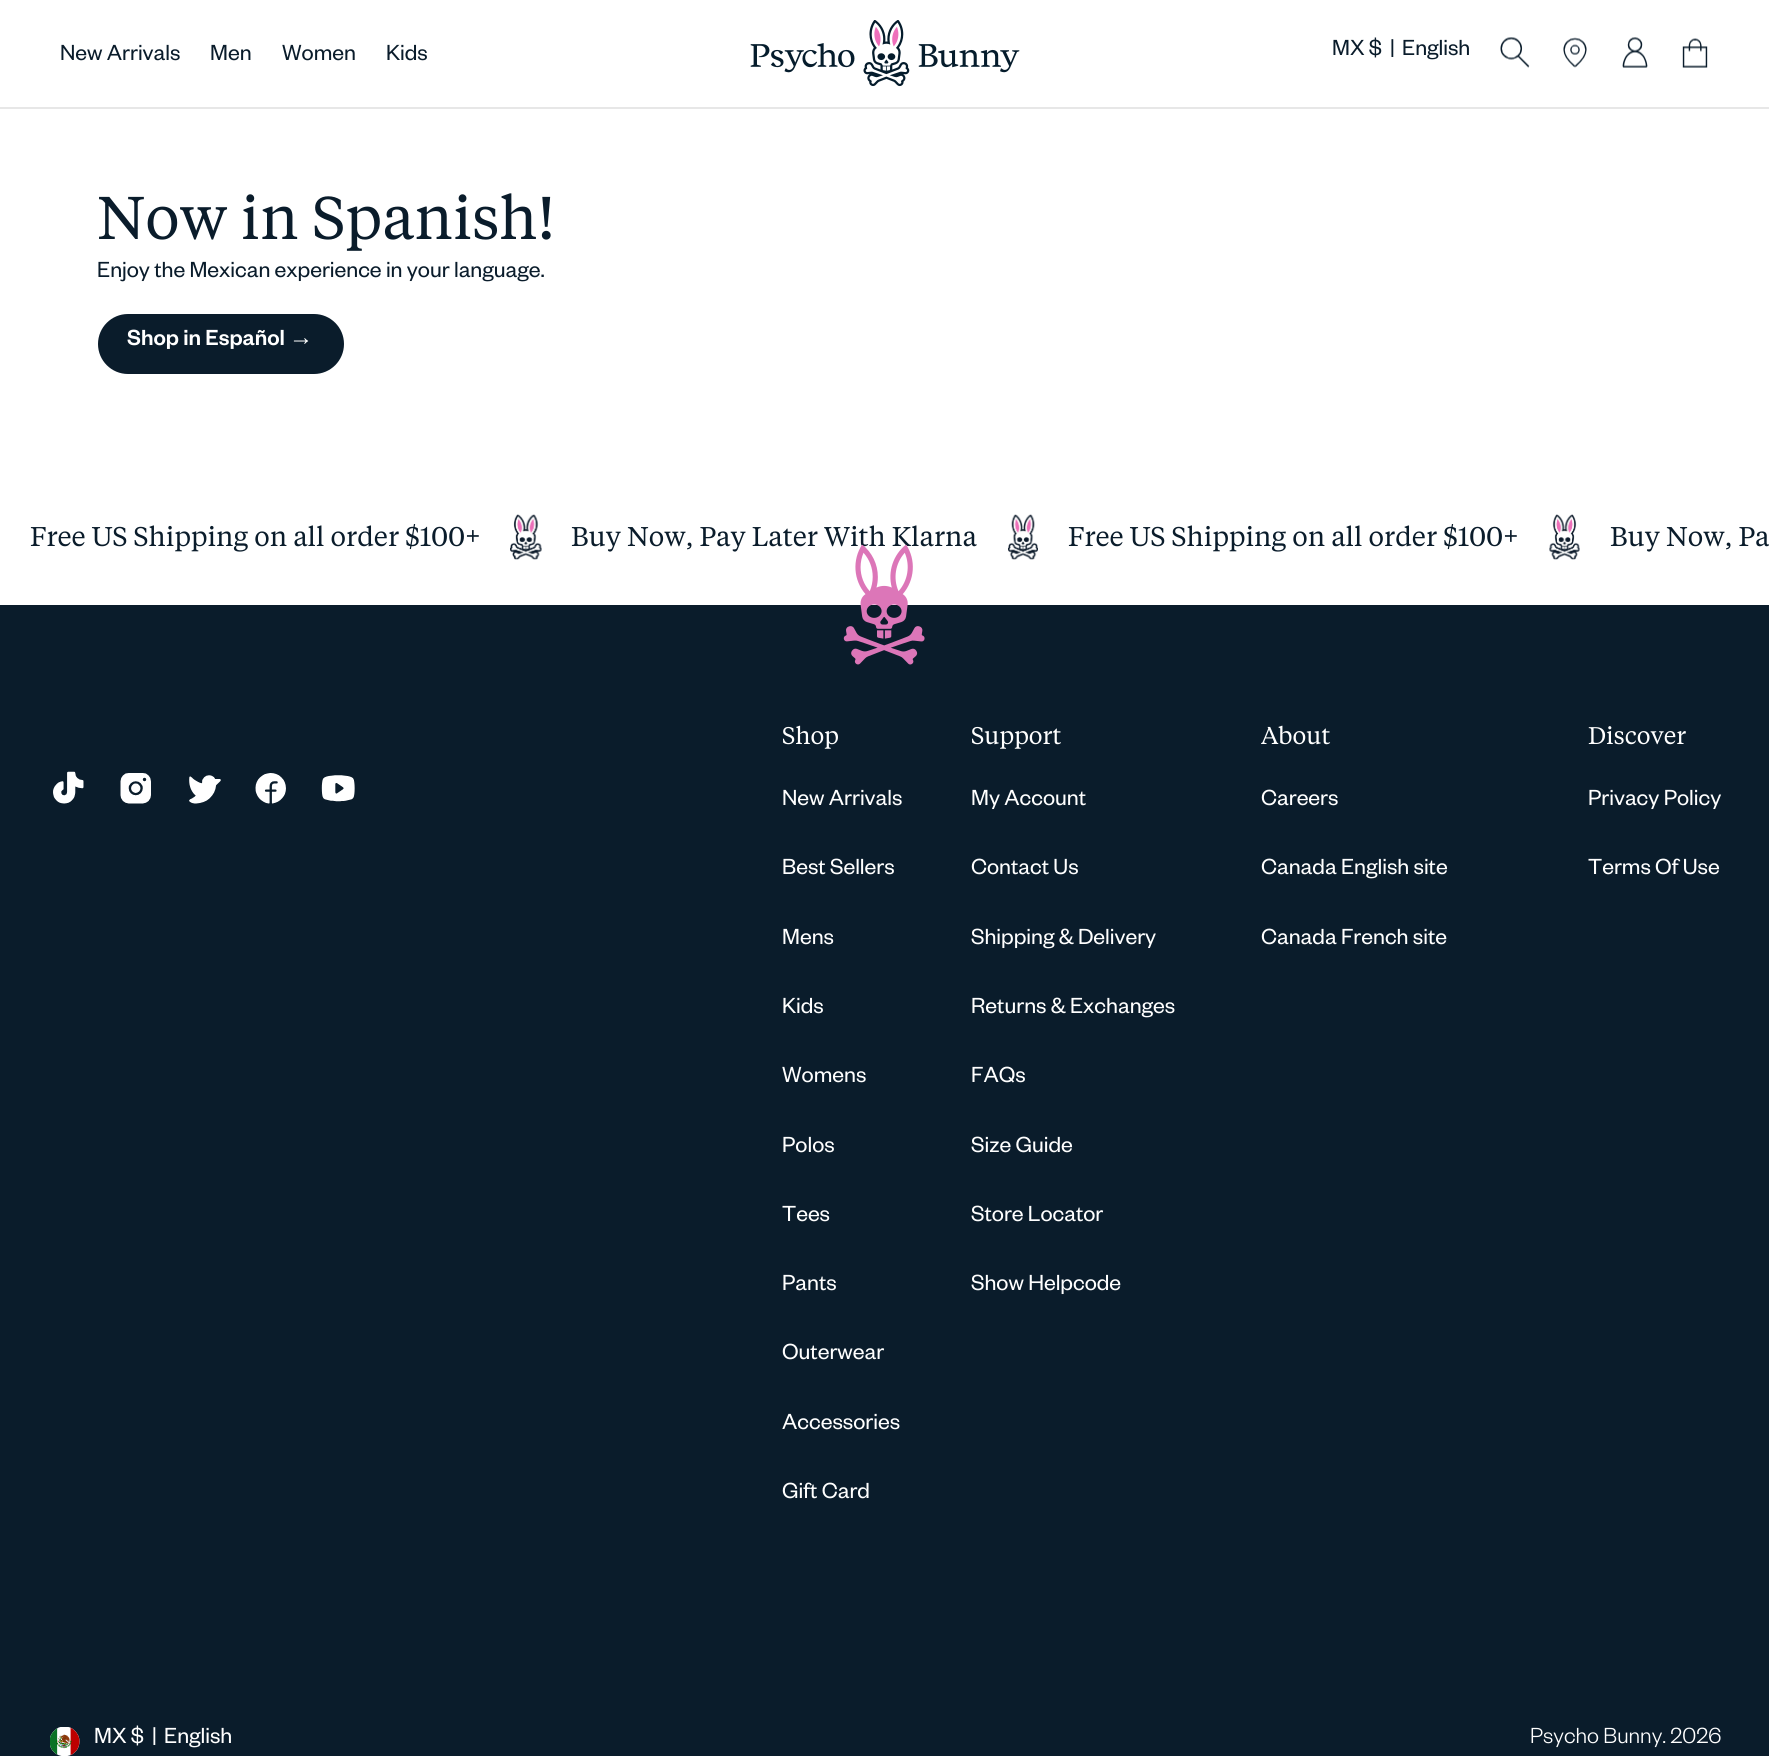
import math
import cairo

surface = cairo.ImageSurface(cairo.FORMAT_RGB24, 1769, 1756)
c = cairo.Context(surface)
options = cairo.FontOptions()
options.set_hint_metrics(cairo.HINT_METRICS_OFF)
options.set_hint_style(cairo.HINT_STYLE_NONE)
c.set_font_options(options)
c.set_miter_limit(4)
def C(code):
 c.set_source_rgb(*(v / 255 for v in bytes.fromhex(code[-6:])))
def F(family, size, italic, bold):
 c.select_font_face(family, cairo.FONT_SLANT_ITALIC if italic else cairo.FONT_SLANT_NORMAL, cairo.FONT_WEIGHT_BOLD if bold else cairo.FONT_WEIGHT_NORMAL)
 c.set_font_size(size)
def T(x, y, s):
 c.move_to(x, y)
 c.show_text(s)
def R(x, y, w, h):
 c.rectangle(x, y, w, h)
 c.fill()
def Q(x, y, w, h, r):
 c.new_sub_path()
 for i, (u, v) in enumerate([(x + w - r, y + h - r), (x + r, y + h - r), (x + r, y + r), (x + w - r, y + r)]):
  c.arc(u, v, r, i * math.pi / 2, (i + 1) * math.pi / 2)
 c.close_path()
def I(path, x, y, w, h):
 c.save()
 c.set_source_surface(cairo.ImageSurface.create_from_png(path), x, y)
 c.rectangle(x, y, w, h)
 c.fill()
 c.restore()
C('ffffff')
c.paint()
C('e7e7e7')
R(0,107,1769,2)
F('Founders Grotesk',24,0,0)
C('0a1c2b')
T(60,60,'New Arrivals')
T(210,60,'Men')
T(282,60,'Women')
T(386,60,'Kids')
I('1.png',750,20,270,67)
T(1332,55,'MX $')
T(1390,55,'|')
T(1402,55,'English')
I('2.png',1500,37,30,31)
I('3.png',1563,37,24,31)
I('4.png',1622,37,26,31)
I('5.png',1682,38,26,30)
F('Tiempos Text',60,0,0)
T(97,239,'Now in Spanish!')
F('Founders Grotesk',24,0,0)
T(97,277,'Enjoy the Mexican experience in your language.')
Q(98,314,246,60,30)
c.fill()
F('Founders Grotesk Medium',24,0,0)
C('ffffff')
T(127,345,'Shop in Español')
F('Liberation Serif',24,0,0)
T(289,345,'→')
F('Tiempos Text',27,0,0)
C('0a1c2b')
T(30,546,'Free US Shipping on all order $100+')
I('6.png',510,514,32,46)
T(571,546,'Buy Now, Pay Later With Klarna')
I('7.png',1008,514,30,46)
T(1068,546,'Free US Shipping on all order $100+')
I('8.png',1549,514,31,46)
T(1610,546,'Buy Now, Pa')
R(0,605,1769,1151)
I('9.png',843,545,82,120)
I('10.png',53,771,31,33)
I('11.png',120,773,31,31)
I('12.png',189,775,32,29)
I('13.png',255,773,31,31)
I('14.png',321,775,34,27)
F('Tiempos Text',24,0,0)
C('ffffff')
T(782,744,'Shop')
F('Founders Grotesk',24,0,0)
T(782,805,'New Arrivals')
T(782,874,'Best Sellers')
T(782,944,'Mens')
T(782,1013,'Kids')
T(782,1082,'Womens')
T(782,1152,'Polos')
T(782,1221,'Tees')
T(782,1290,'Pants')
T(782,1359,'Outerwear')
T(782,1429,'Accessories')
T(782,1498,'Gift Card')
F('Tiempos Text',24,0,0)
T(971,744,'Support')
F('Founders Grotesk',24,0,0)
T(971,805,'My Account')
T(971,874,'Contact Us')
T(971,944,'Shipping & Delivery')
T(971,1013,'Returns & Exchanges')
T(971,1082,'FAQs')
T(971,1152,'Size Guide')
T(971,1221,'Store Locator')
T(971,1290,'Show Helpcode')
F('Tiempos Text',24,0,0)
T(1261,744,'About')
F('Founders Grotesk',24,0,0)
T(1261,805,'Careers')
T(1261,874,'Canada English site')
T(1261,944,'Canada French site')
F('Tiempos Text',24,0,0)
T(1588,744,'Discover')
F('Founders Grotesk',24,0,0)
T(1588,805,'Privacy Policy')
T(1588,874,'Terms Of Use')
I('15.png',50,1727,30,29)
T(94,1743,'MX $')
T(152,1743,'|')
T(164,1743,'English')
F('Founders Grotesk Light',24,0,0)
T(1530,1743,'Psycho Bunny. 2026')
surface.write_to_png('o.png')
